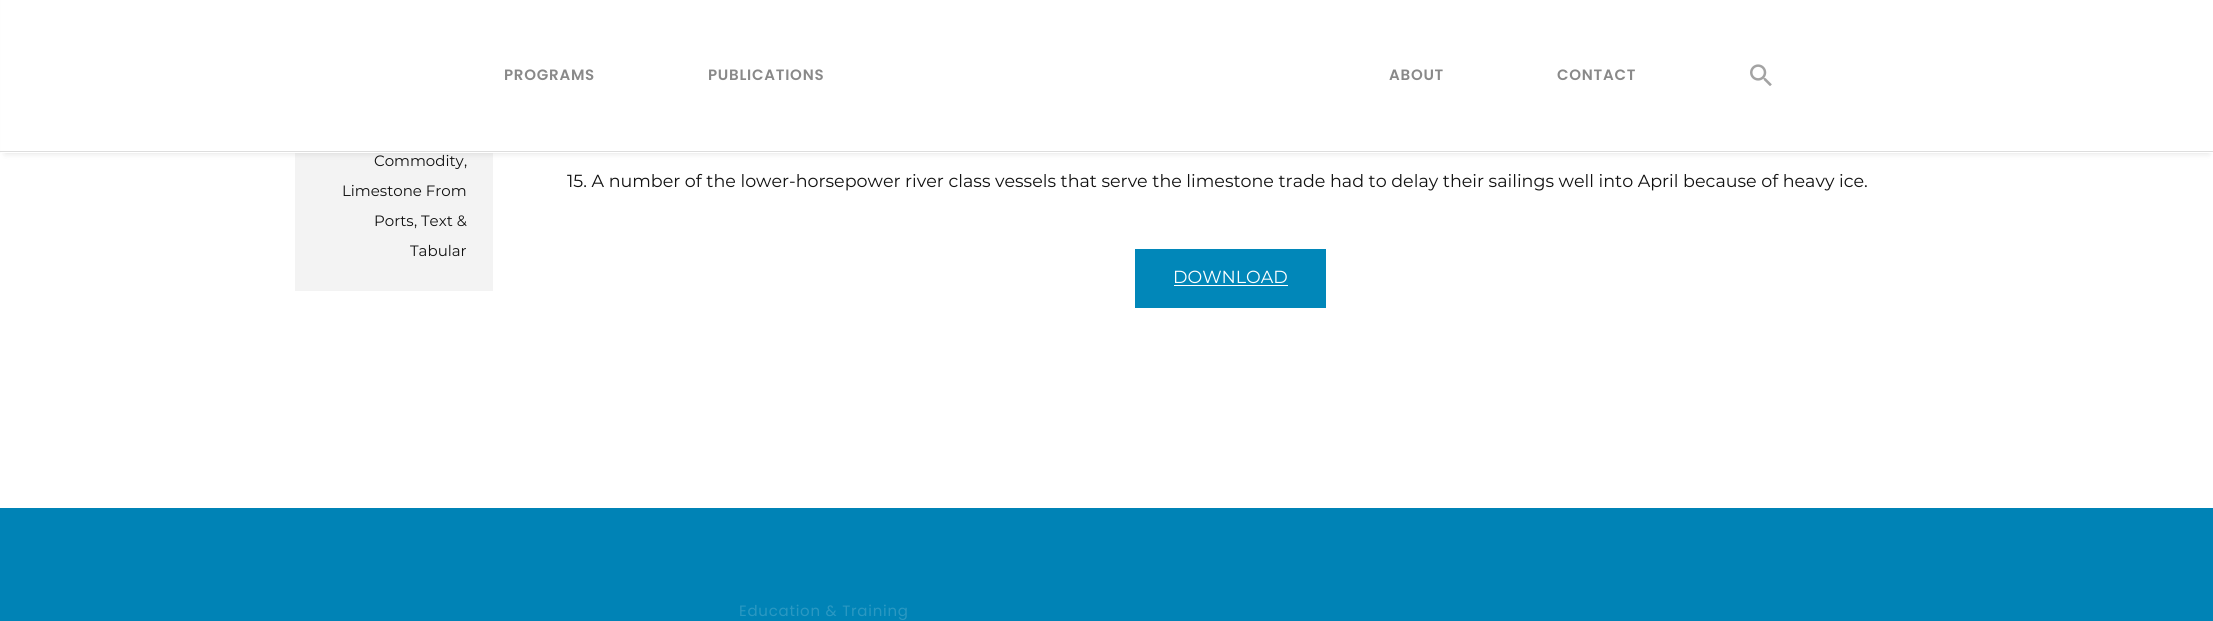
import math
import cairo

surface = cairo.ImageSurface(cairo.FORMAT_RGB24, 2213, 621)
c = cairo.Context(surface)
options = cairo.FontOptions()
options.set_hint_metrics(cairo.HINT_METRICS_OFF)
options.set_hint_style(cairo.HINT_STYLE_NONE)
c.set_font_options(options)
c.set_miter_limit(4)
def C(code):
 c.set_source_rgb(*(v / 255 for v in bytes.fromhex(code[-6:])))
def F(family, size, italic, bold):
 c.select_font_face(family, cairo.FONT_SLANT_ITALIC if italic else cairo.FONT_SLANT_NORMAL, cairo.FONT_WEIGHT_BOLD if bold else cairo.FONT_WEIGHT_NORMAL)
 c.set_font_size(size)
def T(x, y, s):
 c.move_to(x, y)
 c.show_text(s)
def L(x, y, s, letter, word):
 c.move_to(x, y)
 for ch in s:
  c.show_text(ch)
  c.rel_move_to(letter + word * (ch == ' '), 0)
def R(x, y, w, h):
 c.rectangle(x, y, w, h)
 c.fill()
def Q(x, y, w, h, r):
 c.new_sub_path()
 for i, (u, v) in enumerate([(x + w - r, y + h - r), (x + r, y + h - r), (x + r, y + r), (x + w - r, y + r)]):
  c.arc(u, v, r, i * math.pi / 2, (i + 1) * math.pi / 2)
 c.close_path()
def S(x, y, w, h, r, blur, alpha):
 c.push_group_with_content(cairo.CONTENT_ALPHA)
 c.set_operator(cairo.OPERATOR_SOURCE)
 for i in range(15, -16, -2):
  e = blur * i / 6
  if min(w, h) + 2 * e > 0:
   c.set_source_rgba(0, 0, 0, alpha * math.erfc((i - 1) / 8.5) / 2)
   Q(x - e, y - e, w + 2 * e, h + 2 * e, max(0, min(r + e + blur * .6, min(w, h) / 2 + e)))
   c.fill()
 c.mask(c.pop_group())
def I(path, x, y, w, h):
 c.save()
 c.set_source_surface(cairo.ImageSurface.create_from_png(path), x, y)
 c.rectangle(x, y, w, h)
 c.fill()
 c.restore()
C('ffffff')
c.paint()
C('f3f3f3')
R(295,153,198,138)
C('000000')
S(5,-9,2204,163,0,3,.1)
C('ffffff')
R(1,0,2212,153)
C('dddddd')
R(0,151,2213,1)
F('Poppins SemiBold',15,0,0)
C('898989')
L(504,80,'PROGRAMS',.75,0)
C('0083b6')
R(0,508,2213,113)
F('Poppins',15,0,0)
C('2b98c2')
L(739,616,'Education & Training',.75,0)
F('Poppins SemiBold',15,0,0)
C('898989')
L(708,80,'PUBLICATIONS',.75,0)
L(1389,80,'ABOUT',.75,0)
L(1557,80,'CONTACT',.75,0)
I('1.png',1750,64,22,22)
F('Montserrat',15,0,0)
C('111111')
T(374,166,'Commodity')
T(464,166,',')
T(342,196,'Limestone From')
T(374,226,'Ports')
T(414,226,',')
T(421,226,'Text &')
T(410,256,'Tabular')
F('Montserrat',17.5,0,0)
T(567,187,'15. A number of the lower-horsepower river class vessels that serve the limestone trade had to delay their sailings well into April because of heavy ice.')
C('0187b9')
R(1135,249,191,59)
C('ffffff')
T(1173,283,'DOWNLOAD')
R(1174,285,114,1)
surface.write_to_png('o.png')
